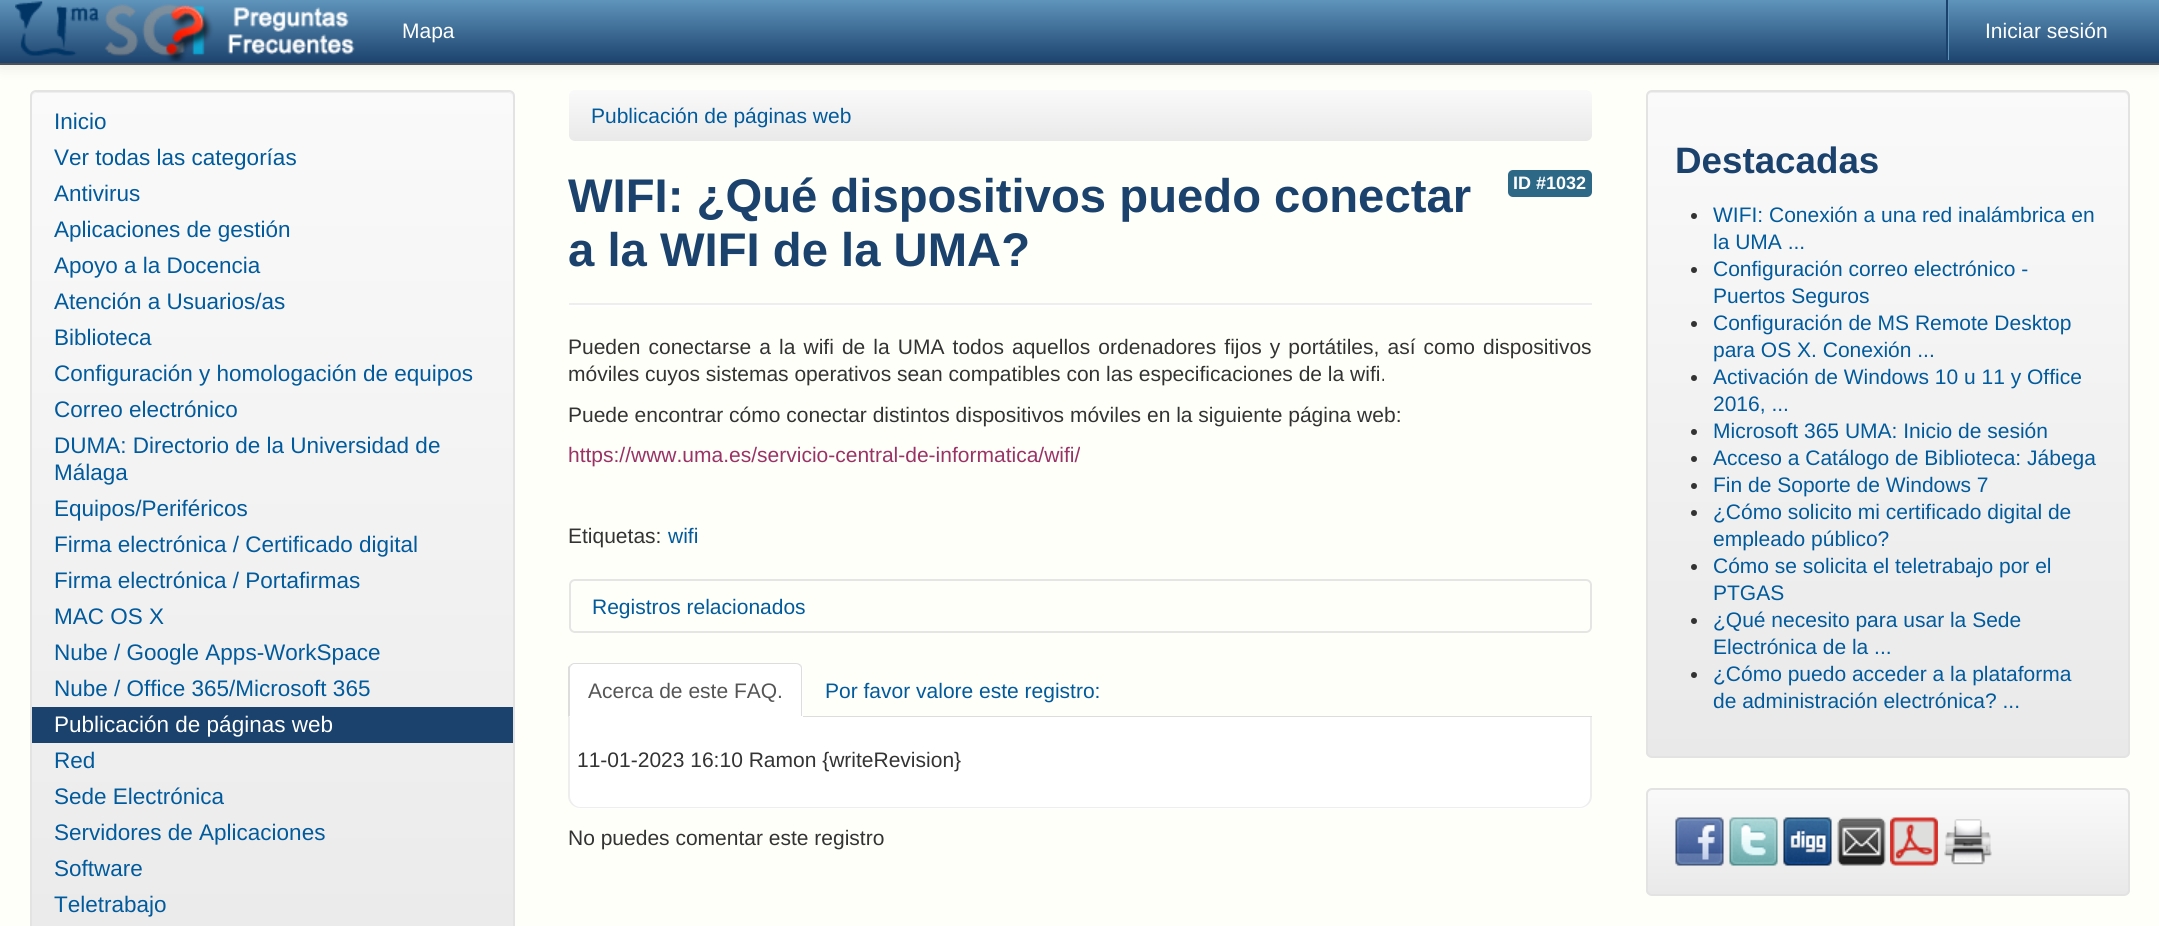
import math
import cairo

surface = cairo.ImageSurface(cairo.FORMAT_RGB24, 2159, 926)
c = cairo.Context(surface)
options = cairo.FontOptions()
options.set_hint_metrics(cairo.HINT_METRICS_OFF)
options.set_hint_style(cairo.HINT_STYLE_NONE)
c.set_font_options(options)
c.set_miter_limit(4)
def C(code):
 c.set_source_rgb(*(v / 255 for v in bytes.fromhex(code[-6:])))
def F(family, size, italic, bold):
 c.select_font_face(family, cairo.FONT_SLANT_ITALIC if italic else cairo.FONT_SLANT_NORMAL, cairo.FONT_WEIGHT_BOLD if bold else cairo.FONT_WEIGHT_NORMAL)
 c.set_font_size(size)
def T(x, y, s):
 c.move_to(x, y)
 c.show_text(s)
def L(x, y, s, letter, word):
 c.move_to(x, y)
 for ch in s:
  c.show_text(ch)
  c.rel_move_to(letter + word * (ch == ' '), 0)
def R(x, y, w, h):
 c.rectangle(x, y, w, h)
 c.fill()
def Q(x, y, w, h, r):
 c.new_sub_path()
 for i, (u, v) in enumerate([(x + w - r, y + h - r), (x + r, y + h - r), (x + r, y + r), (x + w - r, y + r)]):
  c.arc(u, v, r, i * math.pi / 2, (i + 1) * math.pi / 2)
 c.close_path()
def S(x, y, w, h, r, blur, alpha):
 c.push_group_with_content(cairo.CONTENT_ALPHA)
 c.set_operator(cairo.OPERATOR_SOURCE)
 for i in range(15, -16, -2):
  e = blur * i / 6
  if min(w, h) + 2 * e > 0:
   c.set_source_rgba(0, 0, 0, alpha * math.erfc((i - 1) / 8.5) / 2)
   Q(x - e, y - e, w + 2 * e, h + 2 * e, max(0, min(r + e + blur * .6, min(w, h) / 2 + e)))
   c.fill()
 c.mask(c.pop_group())
def I(path, x, y, w, h):
 c.save()
 c.set_source_surface(cairo.ImageSurface.create_from_png(path), x, y)
 c.rectangle(x, y, w, h)
 c.fill()
 c.restore()
C('fffff9')
c.paint()
C('000000')
S(0,2,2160,64,0,7.5,.1)
gradient = cairo.LinearGradient(1080,0,1080,63)
gradient.add_color_stop_rgba(0,0.373,0.58,0.733,1)
gradient.add_color_stop_rgba(1,0.106,0.259,0.427,1)
c.set_source(gradient)
R(0,0,2159,63)
C('4c5159')
R(0,63,2159,2)
I('1.png',15,1,84,55)
I('2.png',104,4,251,58)
F('Liberation Sans',21,0,0)
C('ffffff')
T(402,38,'Mapa')
C('5f94bb')
R(1948,0,1,60)
C('1b426d')
R(1946,0,2,60)
C('ffffff')
T(1985,38,'Iniciar sesión')
c.save()
Q(30,90,485,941,6)
c.clip()
gradient = cairo.LinearGradient(272,92,272,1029)
gradient.add_color_stop_rgba(0,0.98,0.98,0.98,1)
gradient.add_color_stop_rgba(1,0.914,0.914,0.914,1)
c.set_source(gradient)
R(30,92,485,834)
c.restore()
C('eeeeee')
c.new_path()
c.move_to(36,93)
c.line_to(508,93)
c.curve_to(511,93,513,95,513,98)
c.line_to(513,97)
c.curve_to(513,94,511,92,508,92)
c.line_to(37,92)
c.curve_to(34,92,32,94,32,97)
c.line_to(32,98)
c.curve_to(32,95,34,93,36,93)
c.close_path()
c.fill()
Q(31,91,483,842,5)
C('e3e3e3')
c.stroke()
F('Liberation Sans',22.5,0,0)
C('005a9c')
T(54,129,'Inicio')
T(54,165,'Ver todas las categorías')
T(54,201,'Antivirus')
T(54,237,'Aplicaciones de gestión')
T(54,273,'Apoyo a la Docencia')
T(54,309,'Atención a Usuarios/as')
T(54,345,'Biblioteca')
T(54,381,'Configuración y homologación de equipos')
T(54,417,'Correo electrónico')
T(54,453,'DUMA: Directorio de la Universidad de')
T(54,480,'Málaga')
T(54,516,'Equipos/Periféricos')
T(54,552,'Firma electrónica / Certificado digital')
T(54,588,'Firma electrónica / Portafirmas')
T(54,624,'MAC OS X')
T(54,660,'Nube / Google Apps-WorkSpace')
T(54,696,'Nube / Office 365/Microsoft 365')
C('1b426d')
R(32,707,481,36)
C('ffffff')
T(54,732,'Publicación de páginas web')
C('005a9c')
T(54,768,'Red')
T(54,804,'Sede Electrónica')
T(54,840,'Servidores de Aplicaciones')
T(54,876,'Software')
T(54,912,'Teletrabajo')
gradient = cairo.LinearGradient(1080,90,1080,141)
gradient.add_color_stop_rgba(0,0.98,0.98,0.98,1)
gradient.add_color_stop_rgba(1,0.914,0.914,0.914,1)
c.set_source(gradient)
Q(569,90,1023,51,6)
c.fill()
F('Liberation Sans',21,0,0)
C('005a9c')
T(591,123,'Publicación de páginas web')
F('Liberation Sans',47.25,0,1)
C('1b426d')
T(568,212,'WIFI: ¿Qué dispositivos puedo conectar')
T(568,266,'a la WIFI de la UMA?')
C('2d6987')
Q(1508,170,84,27,5)
c.fill()
F('Liberation Sans',18,0,1)
C('ffffff')
T(1513,189,'ID #1032')
C('eeeeee')
R(569,303,1023,2)
C('ffffff')
R(569,305,1023,2)
F('Liberation Sans',21,0,0)
C('333333')
L(568,354,'Pueden conectarse a la wifi de la UMA todos aquellos ordenadores fijos y portátiles, así como dispositivos',0,2.25)
T(568,381,'móviles cuyos sistemas operativos sean compatibles con las especificaciones de la wifi.')
T(568,422,'Puede encontrar cómo conectar distintos dispositivos móviles en la siguiente página web:')
C('993366')
T(568,462,'https://www.uma.es/servicio-central-de-informatica/wifi/')
C('333333')
T(568,543,'Etiquetas:')
C('005a9c')
T(668,543,'wifi')
Q(570,580,1021,52,5)
C('e5e5e5')
c.stroke()
C('005a9c')
T(592,614,'Registros relacionados')
C('dddddd')
R(803,716,789,1)
C('ffffff')
c.new_path()
c.move_to(575,663)
c.line_to(797,663)
c.curve_to(800.5,663,803,665.5,803,669)
c.line_to(803,717)
c.line_to(569,717)
c.line_to(569,669)
c.curve_to(569,665.5,571.5,663,575,663)
c.close_path()
c.fill()
C('dddddd')
c.new_path()
c.move_to(574,663)
c.curve_to(573,663,571,664,570,665)
c.line_to(571,666)
c.curve_to(572,665,573,664,574,664)
c.line_to(796,664)
c.curve_to(798,664,799,665,800,666)
c.line_to(801,665)
c.curve_to(800,664,798,663,796,663)
c.close_path()
c.fill()
c.new_path()
c.move_to(801,665)
c.curve_to(802,666,802,668,802,669)
c.line_to(802,716)
c.line_to(801,716)
c.line_to(801,669)
c.curve_to(801,668,801,667,800,666)
c.close_path()
c.fill()
c.new_path()
c.move_to(568,717)
c.line_to(568,667)
c.line_to(570,665)
c.line_to(571,666)
c.curve_to(570,667,570,668,570,669)
c.line_to(570,716)
c.close_path()
c.fill()
C('555555')
T(588,698,'Acerca de este FAQ.')
C('005a9c')
T(825,698,'Por favor valore este registro:')
C('ffffff')
c.new_path()
c.move_to(569,717)
c.line_to(1592,717)
c.line_to(1592,797)
c.curve_to(1592,803.5,1586.5,809,1580,809)
c.line_to(581,809)
c.curve_to(574.5,809,569,803.5,569,797)
c.close_path()
c.fill()
C('eeeeee')
c.set_fill_rule(cairo.FILL_RULE_EVEN_ODD)
c.new_path()
c.move_to(568,717)
c.line_to(1592,717)
c.line_to(1592,796)
c.curve_to(1592,803,1586,808,1580,808)
c.line_to(580,808)
c.curve_to(574,808,568,803,568,796)
c.close_path()
c.move_to(570,717)
c.line_to(1590,717)
c.line_to(1590,796)
c.curve_to(1590,802,1585,807,1580,807)
c.line_to(580,807)
c.curve_to(575,807,570,802,570,796)
c.close_path()
c.fill()
C('333333')
T(577,767,'11-01-2023 16:10 Ramon {writeRevision}')
T(568,845,'No puedes comentar este registro')
c.save()
c.set_fill_rule(cairo.FILL_RULE_WINDING)
Q(1646,90,484,668,6)
c.clip()
gradient = cairo.LinearGradient(1888,91,1888,756)
gradient.add_color_stop_rgba(0,0.98,0.98,0.98,1)
gradient.add_color_stop_rgba(1,0.914,0.914,0.914,1)
c.set_source(gradient)
R(1646,92,484,664)
c.restore()
c.set_source_rgba(0,0,0,0.05)
c.set_fill_rule(cairo.FILL_RULE_WINDING)
c.new_path()
c.move_to(1652,93)
c.line_to(2124,93)
c.curve_to(2126,93,2128,95,2128,98)
c.line_to(2128,754)
c.curve_to(2129,753,2129,752,2129,751)
c.line_to(2129,97)
c.curve_to(2129,94,2127,92,2124,92)
c.line_to(1652,92)
c.curve_to(1649,92,1647,94,1647,97)
c.line_to(1647,98)
c.curve_to(1647,95,1649,93,1652,93)
c.close_path()
c.fill()
Q(1647,91,482,666,5)
C('e3e3e3')
c.stroke()
F('Liberation Sans',36.75,0,1)
C('1b426d')
T(1675,173,'Destacadas')
C('333333')
c.new_path()
c.arc(1694,216,3,0,2 * math.pi)
c.fill()
F('Liberation Sans',21,0,0)
C('005a9c')
T(1713,222,'WIFI: Conexión a una red inalámbrica en')
T(1713,249,'la UMA ...')
C('333333')
c.new_path()
c.arc(1694,270,3,0,2 * math.pi)
c.fill()
C('005a9c')
T(1713,276,'Configuración correo electrónico -')
T(1713,303,'Puertos Seguros')
C('333333')
c.new_path()
c.arc(1694,324,3,0,2 * math.pi)
c.fill()
C('005a9c')
T(1713,330,'Configuración de MS Remote Desktop')
T(1713,357,'para OS X. Conexión ...')
C('333333')
c.new_path()
c.arc(1694,378,3,0,2 * math.pi)
c.fill()
C('005a9c')
T(1713,384,'Activación de Windows 10 u 11 y Office')
T(1713,411,'2016, ...')
C('333333')
c.new_path()
c.arc(1694,432,3,0,2 * math.pi)
c.fill()
C('005a9c')
T(1713,438,'Microsoft 365 UMA: Inicio de sesión')
C('333333')
c.new_path()
c.arc(1694,459,3,0,2 * math.pi)
c.fill()
C('005a9c')
T(1713,465,'Acceso a Catálogo de Biblioteca: Jábega')
C('333333')
c.new_path()
c.arc(1694,486,3,0,2 * math.pi)
c.fill()
C('005a9c')
T(1713,492,'Fin de Soporte de Windows 7')
C('333333')
c.new_path()
c.arc(1694,513,3,0,2 * math.pi)
c.fill()
C('005a9c')
T(1713,519,'¿Cómo solicito mi certificado digital de')
T(1713,546,'empleado público?')
C('333333')
c.new_path()
c.arc(1694,567,3,0,2 * math.pi)
c.fill()
C('005a9c')
T(1713,573,'Cómo se solicita el teletrabajo por el')
T(1713,600,'PTGAS')
C('333333')
c.new_path()
c.arc(1694,621,3,0,2 * math.pi)
c.fill()
C('005a9c')
T(1713,627,'¿Qué necesito para usar la Sede')
T(1713,654,'Electrónica de la ...')
C('333333')
c.new_path()
c.arc(1694,675,3,0,2 * math.pi)
c.fill()
C('005a9c')
T(1713,681,'¿Cómo puedo acceder a la plataforma')
T(1713,708,'de administración electrónica? ...')
c.save()
Q(1646,788,484,108,6)
c.clip()
gradient = cairo.LinearGradient(1888,789,1888,894)
gradient.add_color_stop_rgba(0,0.98,0.98,0.98,1)
gradient.add_color_stop_rgba(1,0.914,0.914,0.914,1)
c.set_source(gradient)
R(1646,789,484,105)
c.restore()
c.set_source_rgba(0,0,0,0.05)
c.new_path()
c.move_to(1652,790)
c.line_to(2124,790)
c.curve_to(2126,790,2128,793,2128,795)
c.line_to(2128,892)
c.curve_to(2129,891,2129,890,2129,889)
c.line_to(2129,794)
c.curve_to(2129,791,2127,789,2124,789)
c.line_to(1652,789)
c.curve_to(1649,789,1647,791,1647,794)
c.line_to(1647,795)
c.curve_to(1647,793,1649,790,1652,790)
c.close_path()
c.fill()
Q(1647,789,482,106,5)
C('e3e3e3')
c.stroke()
I('3.png',1675,817,49,49)
I('4.png',1729,817,49,49)
I('5.png',1783,817,49,49)
I('6.png',1837,817,49,49)
I('7.png',1890,817,48,49)
I('8.png',1944,819,48,46)
surface.write_to_png('o.png')
